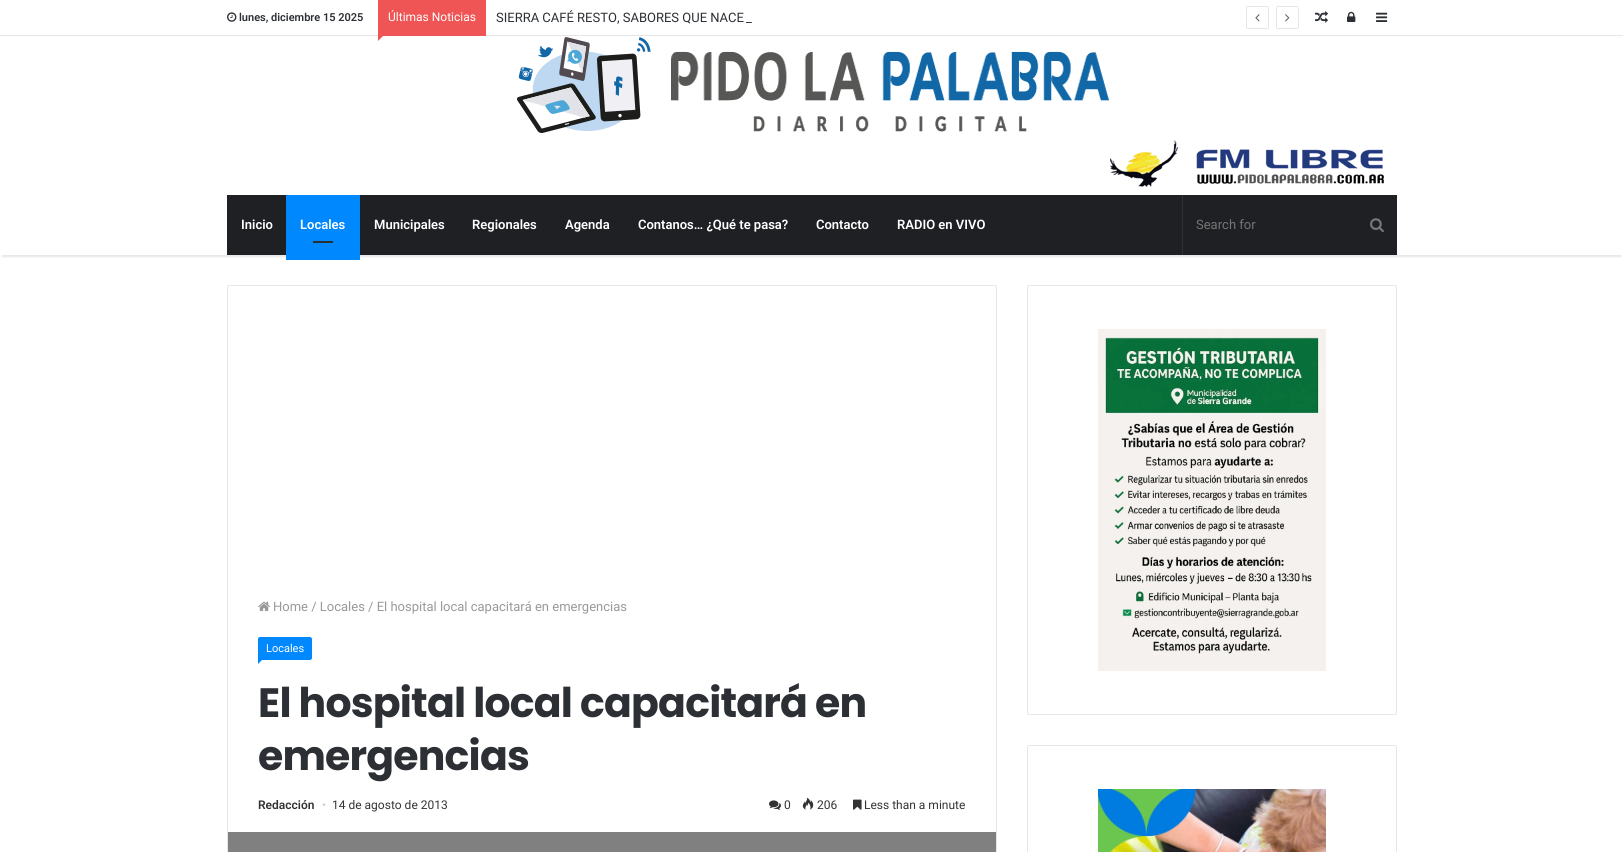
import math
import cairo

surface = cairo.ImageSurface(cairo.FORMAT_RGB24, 1623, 852)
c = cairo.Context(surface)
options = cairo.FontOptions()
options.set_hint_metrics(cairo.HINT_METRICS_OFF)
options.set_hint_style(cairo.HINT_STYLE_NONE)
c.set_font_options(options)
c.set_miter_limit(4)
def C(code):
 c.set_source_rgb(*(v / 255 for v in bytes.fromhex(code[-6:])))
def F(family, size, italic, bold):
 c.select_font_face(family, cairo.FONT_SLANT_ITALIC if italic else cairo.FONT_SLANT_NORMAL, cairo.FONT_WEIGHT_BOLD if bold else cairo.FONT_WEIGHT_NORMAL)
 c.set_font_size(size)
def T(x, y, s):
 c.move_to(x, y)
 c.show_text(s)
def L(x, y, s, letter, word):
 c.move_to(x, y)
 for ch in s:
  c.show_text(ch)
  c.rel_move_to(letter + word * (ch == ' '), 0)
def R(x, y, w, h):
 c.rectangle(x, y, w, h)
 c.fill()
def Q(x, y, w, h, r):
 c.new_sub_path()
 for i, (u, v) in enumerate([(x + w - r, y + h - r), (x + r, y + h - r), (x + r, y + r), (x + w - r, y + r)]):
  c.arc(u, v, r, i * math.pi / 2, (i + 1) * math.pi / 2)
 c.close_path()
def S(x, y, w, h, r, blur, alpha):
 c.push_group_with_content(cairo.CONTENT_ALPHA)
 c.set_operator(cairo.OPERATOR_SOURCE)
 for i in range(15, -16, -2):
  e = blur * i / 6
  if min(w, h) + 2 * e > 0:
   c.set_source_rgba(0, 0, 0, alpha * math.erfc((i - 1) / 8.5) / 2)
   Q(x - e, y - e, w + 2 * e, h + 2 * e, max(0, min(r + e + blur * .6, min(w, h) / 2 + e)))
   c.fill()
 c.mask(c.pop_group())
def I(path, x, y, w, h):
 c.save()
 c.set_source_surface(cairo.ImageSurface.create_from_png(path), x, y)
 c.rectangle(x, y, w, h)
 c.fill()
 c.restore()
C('ffffff')
c.paint()
c.save()
c.rectangle(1,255,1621,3)
c.clip()
C('000000')
S(2,6,1619,251,0,1,.1)
c.restore()
C('e6e6e6')
R(0,35,1623,1)
I('1.png',227,12,10,10)
F('Roboto SemiBold',11,0,0)
C('2c2f34')
T(239,21,'lunes, diciembre 15 2025')
C('f05555')
R(378,0,108,36)
F('Roboto',12,0,0)
C('ffffff')
T(388,21,'Últimas Noticias')
C('f05555')
c.new_path()
c.move_to(378,32)
c.line_to(387,32)
c.line_to(378,41)
c.close_path()
c.fill()
F('Roboto',13,0,0)
C('2c2f34')
T(496,22,'SIERRA CAFÉ RESTO, SABORES QUE NACE')
T(746,22,'_')
Q(1246.5,6.5,22,22,1.5)
C('e6e6e6')
c.set_line_width(1)
c.stroke()
I('2.png',1255,14,5,8)
Q(1276.5,6.5,22,22,1.5)
c.stroke()
I('3.png',1285,14,5,8)
I('4.png',1315,11,13,12)
I('5.png',1347,11,9,11)
I('6.png',1376,12,12,10)
I('7.png',517,37,592,96)
I('8.png',1110,140,274,47)
C('1f2024')
R(227,195,1170,60)
F('Roboto SemiBold',13,0,0)
C('ffffff')
T(241,229,'Inicio')
C('0088ff')
R(286,195,74,65)
C('ffffff')
T(300,229,'Locales')
C('2c2f34')
R(313,241,20,2)
C('ffffff')
T(374,229,'Municipales')
T(472,229,'Regionales')
T(565,229,'Agenda')
T(638,229,'Contanos… ¿Qué te pasa?')
T(816,229,'Contacto')
T(897,229,'RADIO en VIVO')
C('2f3033')
R(1182,195,1,60)
F('Roboto',13,0,0)
C('757575')
T(1196,229,'Search for')
I('9.png',1370,218,14,15)
Q(227.5,285.5,769,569,1.5)
C('e6e6e6')
c.stroke()
I('10.png',258,601,12,10)
C('999999')
T(273,611,'Home / Locales / El hospital local capacitará en emergencias')
C('0088ff')
c.new_path()
c.move_to(260,637)
c.line_to(310,637)
c.curve_to(311,637,312,638,312,639)
c.line_to(312,658)
c.curve_to(312,659,311,660,310,660)
c.line_to(258,660)
c.line_to(258,639)
c.curve_to(258,638,259,637,260,637)
c.close_path()
c.fill()
F('Roboto',11,0,0)
C('ffffff')
T(266,652,'Locales')
C('0088ff')
c.new_path()
c.move_to(258,660)
c.line_to(262,660)
c.line_to(258,664)
c.close_path()
c.fill()
F('Poppins',41,0,1)
C('2c2f34')
L(258,717,'El hospital local capacitará en',-.8,0)
L(258,770,'emergencias',-.8,0)
F('Roboto SemiBold',12,0,0)
C('333333')
T(258,809,'Redacción')
F('Roboto',12,0,0)
C('cccccc')
T(322,809,'•')
C('333333')
T(332,809,'14 de agosto de 2013')
I('11.png',769,800,12,10)
T(784,809,'0')
I('12.png',802,797,12,13)
T(817,809,'206')
I('13.png',853,799,9,11)
T(864,809,'Less than a minute')
C('808080')
R(228,832,768,20)
Q(1027.5,285.5,369,429,1.5)
C('e6e6e6')
c.stroke()
I('14.png',1098,329,228,342)
Q(1027.5,745.5,369,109,1.5)
c.stroke()
I('15.png',1098,789,228,63)
surface.write_to_png('o.png')
